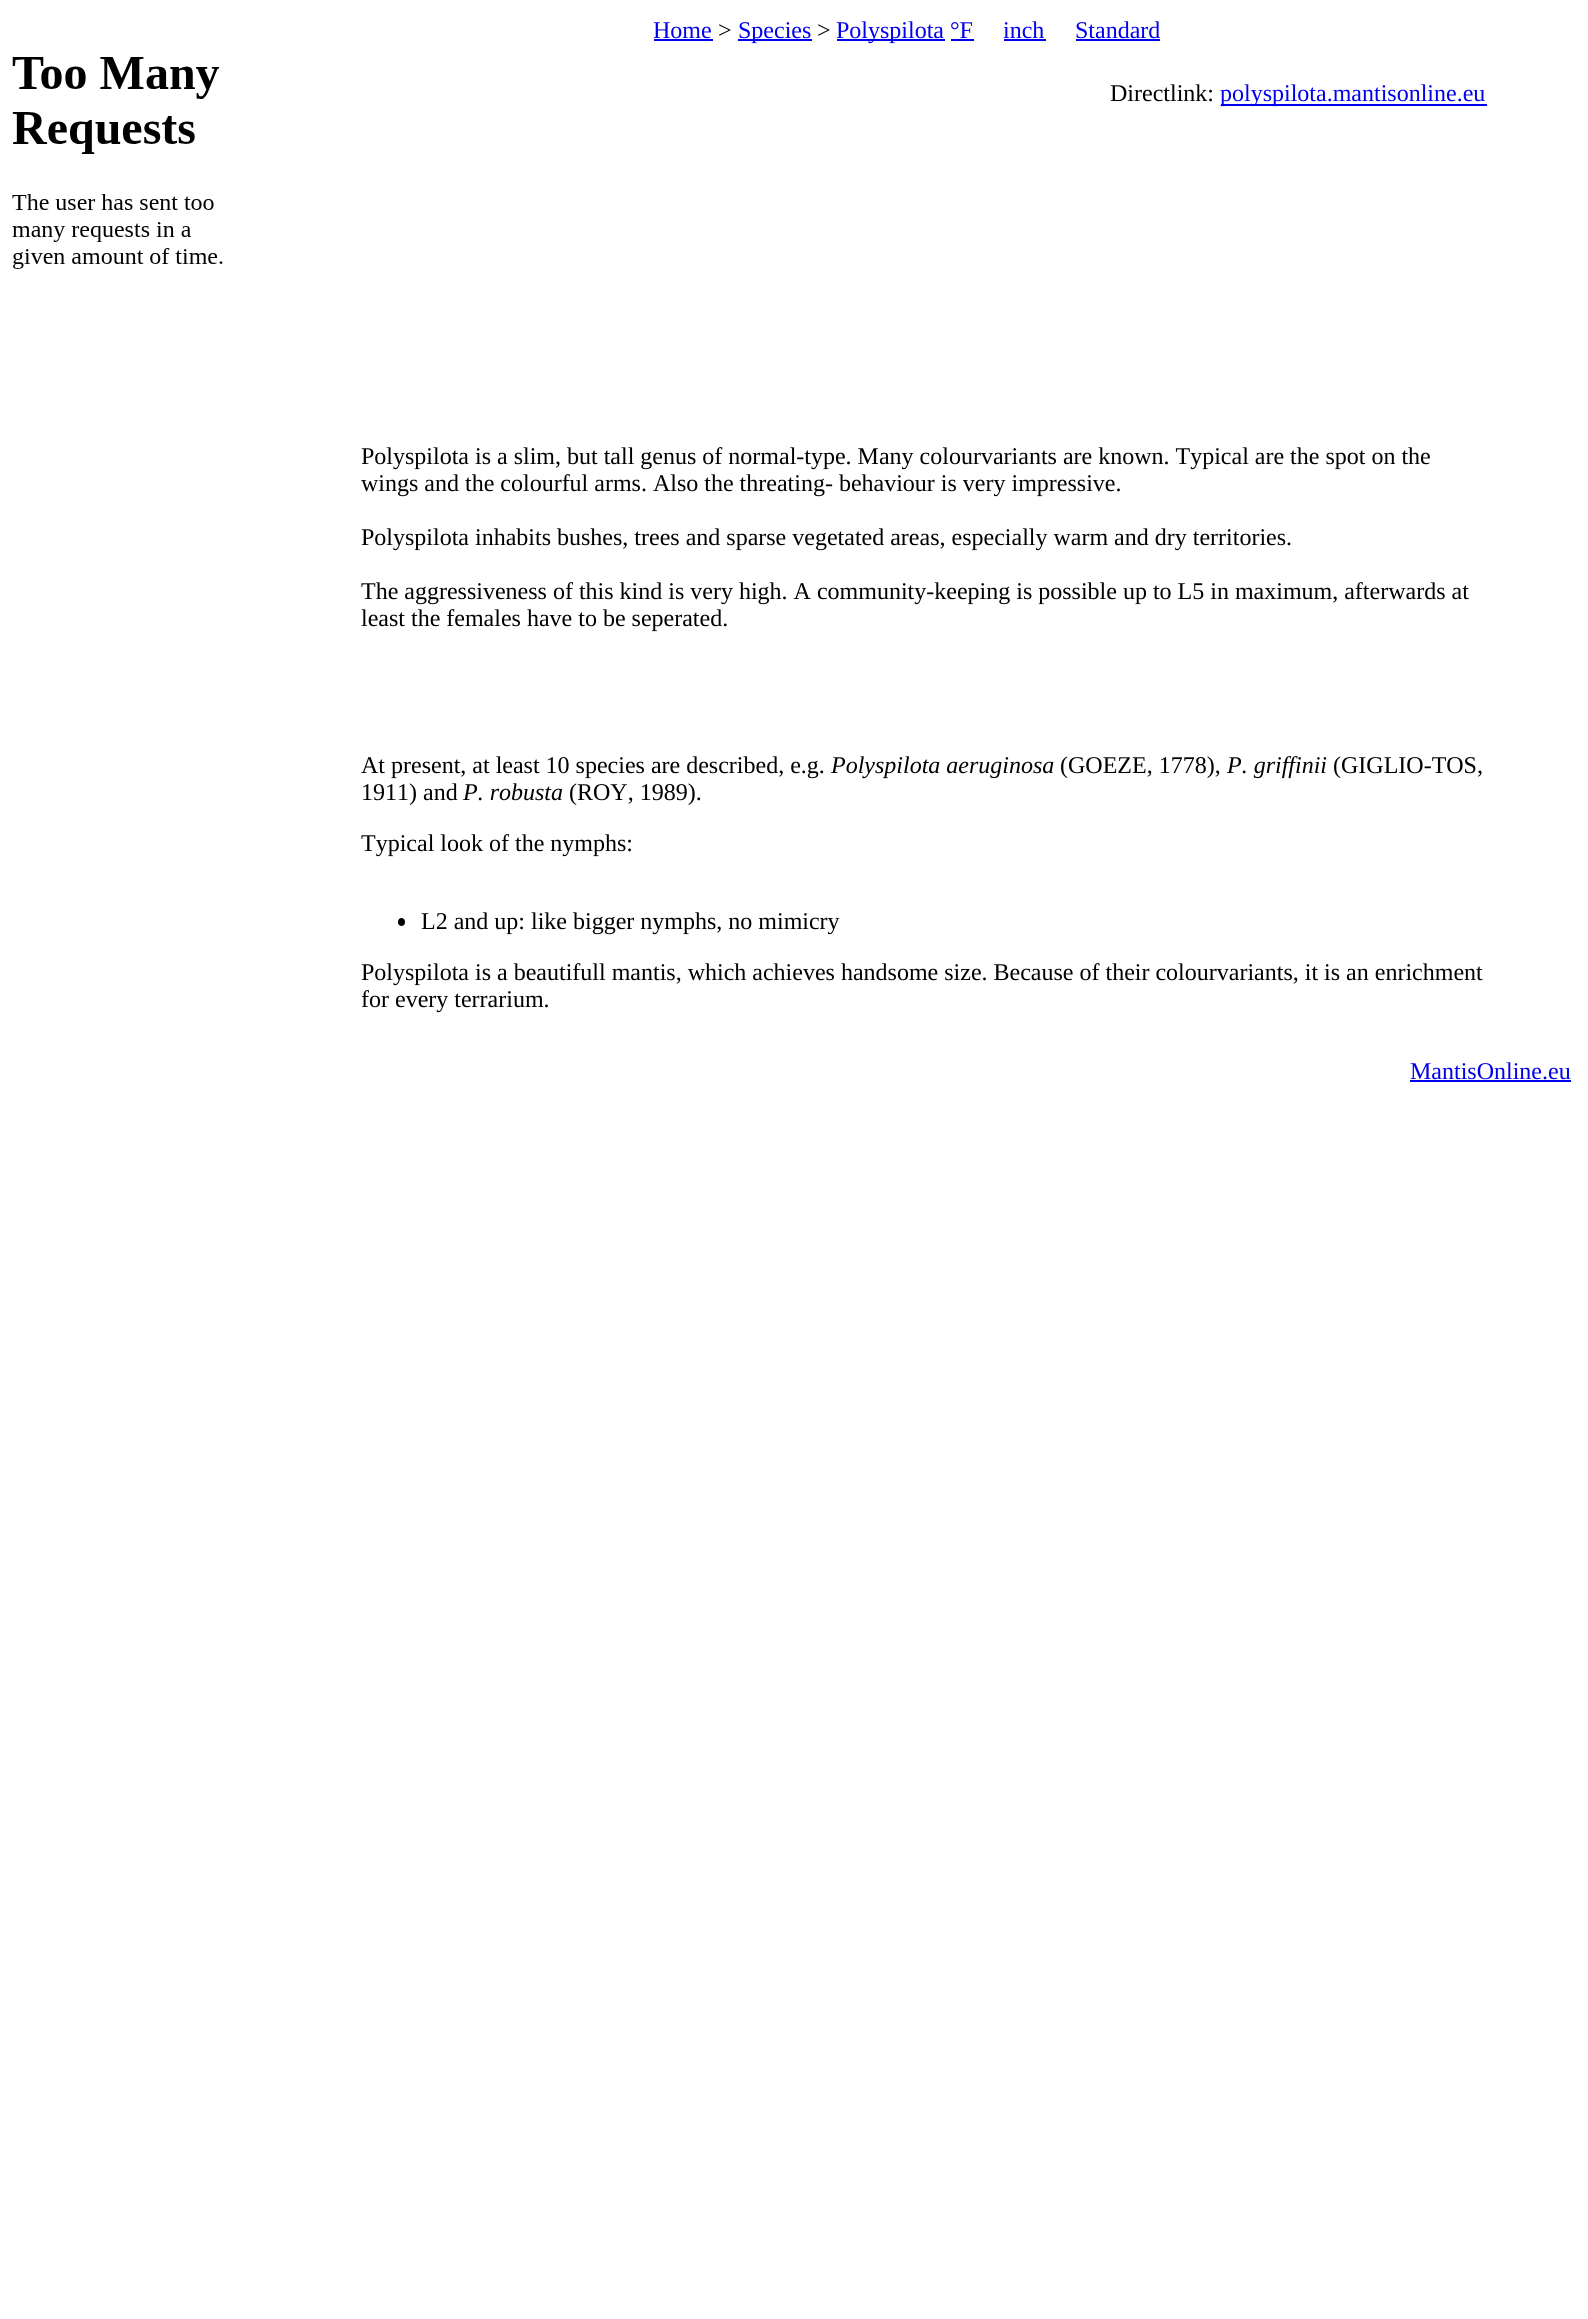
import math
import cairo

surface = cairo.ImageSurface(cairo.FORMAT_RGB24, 1588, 2319)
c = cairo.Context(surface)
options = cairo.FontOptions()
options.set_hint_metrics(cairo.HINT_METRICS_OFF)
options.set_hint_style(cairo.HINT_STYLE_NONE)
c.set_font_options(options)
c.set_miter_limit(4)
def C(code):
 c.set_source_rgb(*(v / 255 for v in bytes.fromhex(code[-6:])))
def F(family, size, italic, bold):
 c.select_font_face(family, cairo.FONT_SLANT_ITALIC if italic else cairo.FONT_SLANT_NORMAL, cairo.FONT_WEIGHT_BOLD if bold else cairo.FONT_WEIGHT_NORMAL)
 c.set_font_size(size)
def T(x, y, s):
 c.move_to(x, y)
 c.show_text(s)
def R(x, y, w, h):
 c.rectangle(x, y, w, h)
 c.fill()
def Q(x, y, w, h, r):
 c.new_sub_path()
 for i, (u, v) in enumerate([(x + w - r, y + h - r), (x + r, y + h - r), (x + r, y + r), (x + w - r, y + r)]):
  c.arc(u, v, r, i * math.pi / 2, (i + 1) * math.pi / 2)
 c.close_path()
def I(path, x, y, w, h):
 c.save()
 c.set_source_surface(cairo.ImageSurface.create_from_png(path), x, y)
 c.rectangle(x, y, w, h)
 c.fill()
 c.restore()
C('ffffff')
c.paint()
I('1.png',12,57,211,212)
F('Liberation Serif',24,0,0)
C('0000ee')
T(653,38,'Home')
R(654,39,59,2)
C('000000')
T(718,38,'>')
C('0000ee')
R(738,39,74,2)
T(738,38,'Species')
C('000000')
T(817,38,'>')
C('0000ee')
R(837,39,108,2)
T(836,38,'Polyspilota °F')
T(1003,38,'inch')
R(1004,39,42,2)
T(1075,38,'Standard')
R(1076,39,84,2)
R(951,39,23,2)
C('000000')
T(1110,101,'Directlink:')
C('0000ee')
R(1221,104,266,2)
T(1220,101,'polyspilota.mantisonline.eu')
C('000000')
T(361,464,'Polyspilota is a slim, but tall genus of normal-type. Many colourvariants are known. Typical are the spot on the')
T(361,491,'wings and the colourful arms. Also the threating- behaviour is very impressive.')
T(361,545,'Polyspilota inhabits bushes, trees and sparse vegetated areas, especially warm and dry territories.')
T(361,599,'The aggressiveness of this kind is very high. A community-keeping is possible up to L5 in maximum, afterwards at')
T(361,626,'least the females have to be seperated.')
T(361,773,'At present, at least 10 species are described, e.g.')
F('Liberation Serif',24,1,0)
T(831,773,'Polyspilota aeruginosa')
F('Liberation Serif',24,0,0)
T(1060,773,'(GOEZE, 1778),')
F('Liberation Serif',24,1,0)
T(1227,773,'P. griffinii')
F('Liberation Serif',24,0,0)
T(1333,773,'(GIGLIO-TOS,')
T(361,800,'1911) and')
F('Liberation Serif',24,1,0)
T(463,800,'P. robusta')
F('Liberation Serif',24,0,0)
T(569,800,'(ROY, 1989).')
T(361,851,'Typical look of the nymphs:')
Q(398,918,7,8,3.5)
c.fill()
T(421,929,'L2 and up: like bigger nymphs, no mimicry')
T(361,980,'Polyspilota is a beautifull mantis, which achieves handsome size. Because of their colourvariants, it is an enrichment')
T(361,1007,'for every terrarium.')
C('0000ee')
T(1410,1079,'MantisOnline.eu')
R(1410,1080,161,2)
surface.write_to_png('o.png')
